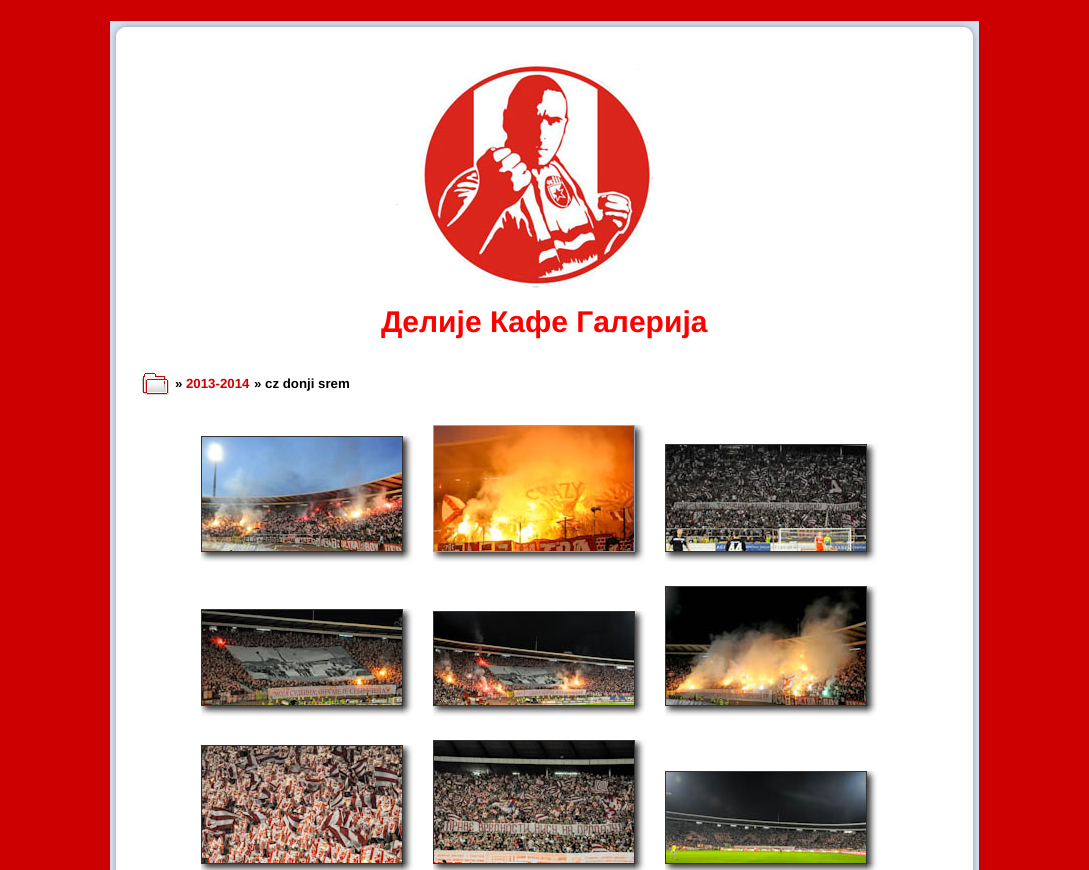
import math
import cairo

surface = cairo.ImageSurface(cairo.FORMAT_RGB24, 1089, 870)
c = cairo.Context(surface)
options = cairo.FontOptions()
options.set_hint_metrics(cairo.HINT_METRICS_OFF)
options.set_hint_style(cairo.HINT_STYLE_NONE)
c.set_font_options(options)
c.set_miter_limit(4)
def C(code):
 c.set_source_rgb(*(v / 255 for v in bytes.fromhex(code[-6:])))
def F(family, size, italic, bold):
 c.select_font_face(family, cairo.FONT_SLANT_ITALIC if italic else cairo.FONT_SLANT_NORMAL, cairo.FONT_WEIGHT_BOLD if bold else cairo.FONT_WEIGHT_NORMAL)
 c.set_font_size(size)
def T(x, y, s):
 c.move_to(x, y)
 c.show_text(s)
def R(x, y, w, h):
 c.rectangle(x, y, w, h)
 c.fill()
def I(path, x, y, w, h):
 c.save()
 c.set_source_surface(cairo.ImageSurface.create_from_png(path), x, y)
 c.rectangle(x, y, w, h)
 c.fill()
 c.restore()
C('cc0000')
c.paint()
I('1.png',110,21,16,16)
I('2.png',126,21,837,16)
I('3.png',963,21,16,16)
I('4.png',110,37,16,833)
C('ffffff')
R(126,37,837,833)
I('5.png',395,62,259,226)
F('Liberation Sans',30,0,1)
C('ff0000')
T(381,332,'Делије Кафе Галерија')
I('6.png',141,369,30,30)
F('Liberation Sans',13.25,0,1)
C('000000')
T(175,388,'»')
C('cc0000')
T(186,388,'2013-2014')
C('000000')
T(254,388,'» cz donji srem')
c.rectangle(201.5,436.5,201,115)
C('333333')
c.set_line_width(1)
c.stroke()
I('7.png',202,437,200,114)
I('8.png',403,436,11,116)
I('9.png',201,552,202,10)
I('10.png',403,552,10,10)
c.rectangle(433.5,425.5,201,126)
C('8ca0bf')
c.stroke()
I('11.png',434,426,200,125)
I('12.png',635,425,11,127)
I('9.png',433,552,202,10)
I('10.png',635,552,10,10)
c.rectangle(665.5,444.5,201,107)
C('333333')
c.stroke()
I('13.png',666,445,200,106)
I('14.png',867,444,11,108)
I('9.png',665,552,202,10)
I('10.png',867,552,10,10)
c.rectangle(201.5,609.5,201,96)
c.stroke()
I('15.png',202,610,200,95)
I('16.png',403,609,11,97)
I('9.png',201,706,202,10)
I('10.png',403,706,10,10)
c.rectangle(433.5,611.5,201,94)
c.stroke()
I('17.png',434,612,200,93)
I('18.png',635,611,11,95)
I('9.png',433,706,202,10)
I('10.png',635,706,10,10)
c.rectangle(665.5,586.5,201,119)
c.stroke()
I('19.png',666,587,200,118)
I('20.png',867,586,11,120)
I('9.png',665,706,202,10)
I('10.png',867,706,10,10)
c.rectangle(201.5,745.5,201,118)
c.stroke()
I('21.png',202,746,200,117)
I('22.png',403,745,11,119)
I('23.png',201,864,202,6)
I('24.png',403,864,10,6)
c.rectangle(433.5,740.5,201,123)
c.stroke()
I('25.png',434,741,200,122)
I('26.png',635,740,11,124)
I('23.png',433,864,202,6)
I('24.png',635,864,10,6)
c.rectangle(665.5,771.5,201,92)
c.stroke()
I('27.png',666,772,200,91)
I('28.png',867,771,11,93)
I('23.png',665,864,202,6)
I('24.png',867,864,10,6)
I('29.png',963,37,16,833)
surface.write_to_png('o.png')
